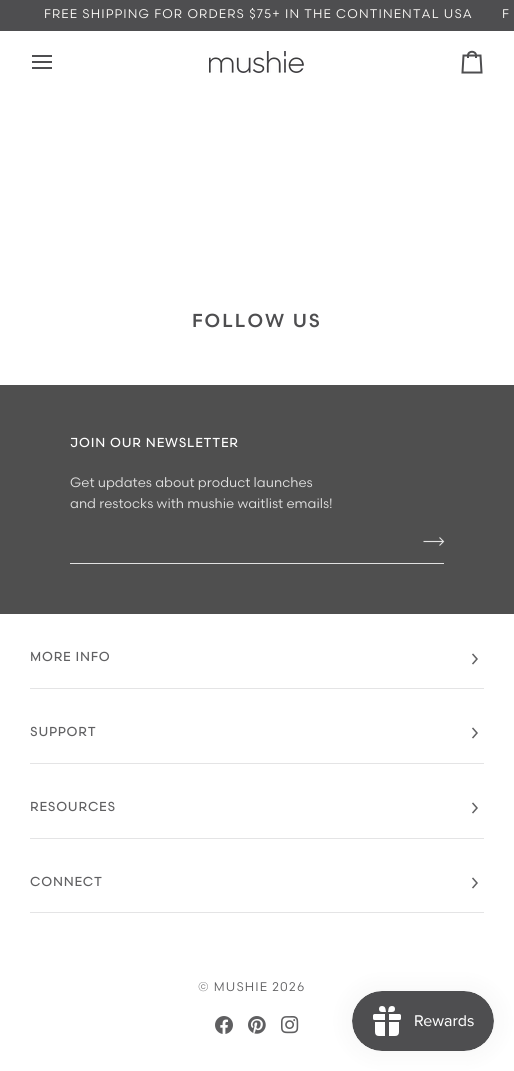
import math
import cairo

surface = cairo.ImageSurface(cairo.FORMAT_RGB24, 514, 1071)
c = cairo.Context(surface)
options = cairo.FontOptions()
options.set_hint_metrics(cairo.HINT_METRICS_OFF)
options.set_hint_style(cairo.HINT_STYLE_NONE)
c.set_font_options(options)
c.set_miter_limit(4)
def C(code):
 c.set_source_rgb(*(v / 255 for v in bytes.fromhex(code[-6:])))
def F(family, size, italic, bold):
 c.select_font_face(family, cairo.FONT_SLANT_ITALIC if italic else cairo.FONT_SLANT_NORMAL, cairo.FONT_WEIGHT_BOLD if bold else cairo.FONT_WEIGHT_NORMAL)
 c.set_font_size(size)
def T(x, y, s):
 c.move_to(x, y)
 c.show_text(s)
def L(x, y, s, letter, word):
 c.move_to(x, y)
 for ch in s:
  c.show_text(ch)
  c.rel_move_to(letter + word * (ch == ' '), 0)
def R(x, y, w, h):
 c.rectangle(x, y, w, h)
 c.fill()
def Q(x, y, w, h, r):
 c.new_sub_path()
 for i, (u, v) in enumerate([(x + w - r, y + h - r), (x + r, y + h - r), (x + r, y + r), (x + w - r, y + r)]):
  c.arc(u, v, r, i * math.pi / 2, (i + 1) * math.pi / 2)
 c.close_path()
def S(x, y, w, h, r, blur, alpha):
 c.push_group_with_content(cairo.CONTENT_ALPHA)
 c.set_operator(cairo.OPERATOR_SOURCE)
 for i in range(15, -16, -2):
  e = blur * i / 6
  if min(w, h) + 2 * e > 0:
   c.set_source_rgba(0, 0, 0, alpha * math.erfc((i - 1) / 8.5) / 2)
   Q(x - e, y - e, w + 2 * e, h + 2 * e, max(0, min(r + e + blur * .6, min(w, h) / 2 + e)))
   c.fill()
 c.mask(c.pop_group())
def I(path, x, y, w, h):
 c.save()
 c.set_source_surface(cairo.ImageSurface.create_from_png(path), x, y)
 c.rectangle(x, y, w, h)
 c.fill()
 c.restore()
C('ffffff')
c.paint()
C('4e4e50')
R(0,0,514,31)
F('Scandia',12.5,0,0)
C('fcfaf7')
L(44,18,'FREE SHIPPING FOR ORDERS $75+ IN THE CONTINENTAL USA',1.12,0)
L(502,18,'F',1.12,0)
c.new_path()
c.move_to(51,56)
c.line_to(33,56)
c.move_to(51,62)
c.line_to(33,62)
c.move_to(51,68)
c.line_to(33,68)
C('4e4e50')
c.set_line_cap(cairo.LINE_CAP_SQUARE)
c.stroke()
I('1.png',209,51,95,22)
c.new_path()
c.move_to(476,58)
c.line_to(476,55.5)
c.line_to(480.5,55.5)
c.line_to(481.5,72.5)
c.line_to(462.5,72.5)
c.line_to(463.5,55.5)
c.line_to(468,55.5)
c.curve_to(468,50.5,476,50.5,476,55.5)
c.line_to(468,55.5)
c.line_to(468,58)
c.set_line_cap(cairo.LINE_CAP_BUTT)
c.stroke()
F('Scandia Medium',18.75,0,0)
L(192,327,'FOLLOW US',2,0)
C('4f4f4f')
R(0,385,514,229)
F('Scandia',12.5,0,1)
C('ffffff')
L(70,447,'JOIN OUR NEWSLETTER',1.12,0)
F('Scandia',13.5,0,0)
C('e2e2e2')
T(70,487,'Get updates about product launches')
T(70,508,'and restocks with mushie waitlist emails!')
R(70,563,374,1)
c.new_path()
c.move_to(439.5,537.5)
c.line_to(443.5,541.5)
c.line_to(439.5,545.5)
c.move_to(423.5,541.5)
c.line_to(443.5,541.5)
c.set_line_width(1.1)
c.stroke()
C('e4e4e5')
R(30,688,454,1)
F('Scandia',12.5,0,1)
C('606062')
L(30,661,'MORE INFO',1.12,0)
c.new_path()
c.move_to(473,663.5)
c.line_to(477,659)
c.line_to(473,654.5)
c.set_line_width(1.5)
c.set_line_cap(cairo.LINE_CAP_SQUARE)
c.stroke()
C('e4e4e5')
R(30,763,454,1)
C('606062')
L(30,736,'SUPPORT',1.12,0)
c.new_path()
c.move_to(473,737.5)
c.line_to(477,733)
c.line_to(473,728.5)
c.stroke()
C('e4e4e5')
R(30,838,454,1)
C('606062')
L(30,811,'RESOURCES',1.12,0)
c.new_path()
c.move_to(473,812.5)
c.line_to(477,808)
c.line_to(473,803.5)
c.stroke()
C('e4e4e5')
R(30,912,454,1)
C('606062')
L(30,886,'CONNECT',1.12,0)
c.new_path()
c.move_to(473,887.5)
c.line_to(477,883)
c.line_to(473,878.5)
c.stroke()
F('Scandia',12.5,0,0)
L(198,991,'© MUSHIE',1.12,0)
L(272,991,'2026',1.12,0)
I('2.png',215,1016,18,18)
I('3.png',248,1016,18,18)
I('4.png',281,1016,18,18)
C('000000')
S(352,991,142,60,30,12.5,.05)
I('5.png',352,991,142,60)
surface.write_to_png('o.png')
